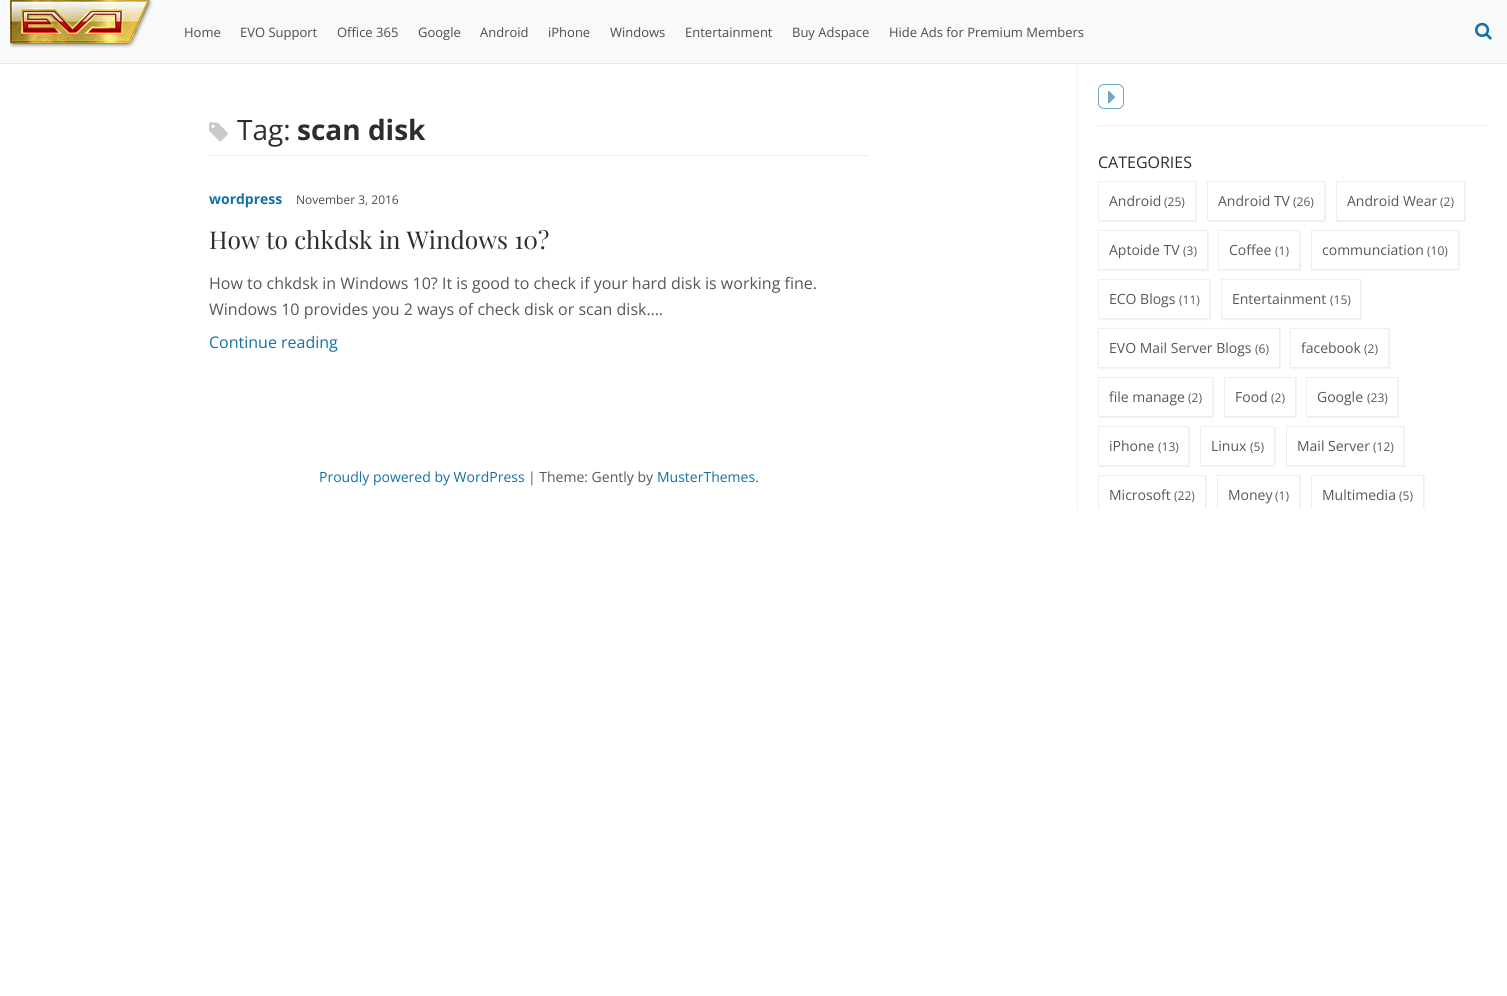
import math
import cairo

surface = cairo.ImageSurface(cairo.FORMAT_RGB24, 1507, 996)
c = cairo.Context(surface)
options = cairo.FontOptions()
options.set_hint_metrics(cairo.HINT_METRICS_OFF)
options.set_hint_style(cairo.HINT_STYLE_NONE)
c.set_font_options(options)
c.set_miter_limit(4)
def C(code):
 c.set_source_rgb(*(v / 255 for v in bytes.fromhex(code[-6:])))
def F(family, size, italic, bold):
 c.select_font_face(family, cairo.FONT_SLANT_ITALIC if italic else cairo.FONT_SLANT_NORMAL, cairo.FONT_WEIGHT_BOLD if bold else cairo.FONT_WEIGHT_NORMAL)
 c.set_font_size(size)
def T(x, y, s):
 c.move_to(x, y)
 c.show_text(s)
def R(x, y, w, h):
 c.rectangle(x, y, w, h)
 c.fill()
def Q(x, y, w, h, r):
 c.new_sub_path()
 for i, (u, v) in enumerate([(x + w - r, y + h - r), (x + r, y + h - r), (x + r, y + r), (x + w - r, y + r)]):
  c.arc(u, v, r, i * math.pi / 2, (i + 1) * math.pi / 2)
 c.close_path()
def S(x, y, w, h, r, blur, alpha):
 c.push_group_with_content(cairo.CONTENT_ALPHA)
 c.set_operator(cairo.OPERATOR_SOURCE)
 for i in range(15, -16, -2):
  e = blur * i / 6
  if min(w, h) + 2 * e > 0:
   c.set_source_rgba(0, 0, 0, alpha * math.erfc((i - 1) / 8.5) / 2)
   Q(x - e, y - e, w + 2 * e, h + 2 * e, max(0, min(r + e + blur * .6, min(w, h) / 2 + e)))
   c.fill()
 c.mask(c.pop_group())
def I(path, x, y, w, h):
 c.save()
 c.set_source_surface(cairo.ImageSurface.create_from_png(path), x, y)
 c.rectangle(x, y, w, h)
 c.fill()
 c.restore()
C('ffffff')
c.paint()
C('f8f9fa')
R(0,0,1507,63)
C('e7e7e7')
R(0,63,1507,1)
I('1.png',10,0,143,48)
F('Open Sans',13,0,0)
C('4c4d4e')
T(184,37,'Home')
T(240,37,'EVO Support')
T(337,37,'Office 365')
T(418,37,'Google')
T(480,37,'Android')
T(548,37,'iPhone')
T(610,37,'Windows')
T(685,37,'Entertainment')
T(792,37,'Buy Adspace')
T(889,37,'Hide Ads for Premium Members')
I('2.png',1475,22,17,18)
C('eeeeee')
R(209,155,660,1)
I('3.png',209,122,19,20)
F('Open Sans',28,0,0)
C('2d2d2d')
T(237,140,'Tag:')
F('Open Sans',28,0,1)
T(297,140,'scan disk')
F('Open Sans',14,0,1)
C('1271a3')
T(209,204,'wordpress')
F('Open Sans',12,0,0)
C('484d55')
T(296,204,'November 3, 2016')
F('Playfair Display',24.5,0,0)
C('2d2d2d')
T(209,249,'How to chkdsk in Windows 10?')
F('Open Sans',16,0,0)
C('575757')
T(209,289,'How to chkdsk in Windows 10? It is good to check if your hard disk is working fine.')
T(209,315,'Windows 10 provides you 2 ways of check disk or scan disk….')
C('1271a3')
T(209,348,'Continue reading')
C('f1f2f4')
R(1077,64,1,445)
Q(1098.5,84.5,25,24,5.5)
C('70a9c7')
c.set_line_width(1)
c.stroke()
I('4.png',1108,90,7,14)
C('eeeeee')
R(1098,125,389,1)
C('2d2d2d')
T(1098,168,'CATEGORIES')
C('000028')
S(1099,182,98,40,0,.5,.05)
C('ffffff')
c.rectangle(1098.5,181.5,97,39)
c.fill_preserve()
C('eeeeee')
c.stroke()
F('Open Sans',14,0,0)
C('575757')
T(1109,206,'Android')
F('Open Sans',12,0,0)
T(1164,206,'(25)')
C('000028')
S(1208,182,118,40,0,.5,.05)
C('ffffff')
c.rectangle(1207.5,181.5,117,39)
c.fill_preserve()
C('eeeeee')
c.stroke()
F('Open Sans',14,0,0)
C('575757')
T(1218,206,'Android TV')
F('Open Sans',12,0,0)
T(1293,206,'(26)')
C('000028')
S(1337,182,129,40,0,.5,.05)
C('ffffff')
c.rectangle(1336.5,181.5,128,39)
c.fill_preserve()
C('eeeeee')
c.stroke()
F('Open Sans',14,0,0)
C('575757')
T(1347,206,'Android Wear')
F('Open Sans',12,0,0)
T(1440,206,'(2)')
C('000028')
S(1099,231,110,40,0,.5,.05)
C('ffffff')
c.rectangle(1098.5,230.5,109,39)
c.fill_preserve()
C('eeeeee')
c.stroke()
F('Open Sans',14,0,0)
C('575757')
T(1109,255,'Aptoide TV')
F('Open Sans',12,0,0)
T(1183,255,'(3)')
C('000028')
S(1219,231,82,40,0,.5,.05)
C('ffffff')
c.rectangle(1218.5,230.5,81,39)
c.fill_preserve()
C('eeeeee')
c.stroke()
F('Open Sans',14,0,0)
C('575757')
T(1229,255,'Coffee')
F('Open Sans',12,0,0)
T(1275,255,'(1)')
C('000028')
S(1312,231,148,40,0,.5,.05)
C('ffffff')
c.rectangle(1311.5,230.5,147,39)
c.fill_preserve()
C('eeeeee')
c.stroke()
F('Open Sans',14,0,0)
C('575757')
T(1322,255,'communciation')
F('Open Sans',12,0,0)
T(1427,255,'(10)')
C('000028')
S(1099,280,112,40,0,.5,.05)
C('ffffff')
c.rectangle(1098.5,279.5,111,39)
c.fill_preserve()
C('eeeeee')
c.stroke()
F('Open Sans',14,0,0)
C('575757')
T(1109,304,'ECO Blogs')
F('Open Sans',12,0,0)
T(1179,304,'(11)')
C('000028')
S(1222,280,140,40,0,.5,.05)
C('ffffff')
c.rectangle(1221.5,279.5,139,39)
c.fill_preserve()
C('eeeeee')
c.stroke()
F('Open Sans',14,0,0)
C('575757')
T(1232,304,'Entertainment')
F('Open Sans',12,0,0)
T(1330,304,'(15)')
C('000028')
S(1099,329,182,40,0,.5,.05)
C('ffffff')
c.rectangle(1098.5,328.5,181,39)
c.fill_preserve()
C('eeeeee')
c.stroke()
F('Open Sans',14,0,0)
C('575757')
T(1109,353,'EVO Mail Server Blogs')
F('Open Sans',12,0,0)
T(1255,353,'(6)')
C('000028')
S(1291,329,99,40,0,.5,.05)
C('ffffff')
c.rectangle(1290.5,328.5,98,39)
c.fill_preserve()
C('eeeeee')
c.stroke()
F('Open Sans',14,0,0)
C('575757')
T(1301,353,'facebook')
F('Open Sans',12,0,0)
T(1364,353,'(2)')
C('000028')
S(1099,378,115,40,0,.5,.05)
C('ffffff')
c.rectangle(1098.5,377.5,114,39)
c.fill_preserve()
C('eeeeee')
c.stroke()
F('Open Sans',14,0,0)
C('575757')
T(1109,402,'file manage')
F('Open Sans',12,0,0)
T(1188,402,'(2)')
C('000028')
S(1225,378,72,40,0,.5,.05)
C('ffffff')
c.rectangle(1224.5,377.5,71,39)
c.fill_preserve()
C('eeeeee')
c.stroke()
F('Open Sans',14,0,0)
C('575757')
T(1235,402,'Food')
F('Open Sans',12,0,0)
T(1271,402,'(2)')
C('000028')
S(1307,378,92,40,0,.5,.05)
C('ffffff')
c.rectangle(1306.5,377.5,91,39)
c.fill_preserve()
C('eeeeee')
c.stroke()
F('Open Sans',14,0,0)
C('575757')
T(1317,402,'Google')
F('Open Sans',12,0,0)
T(1367,402,'(23)')
C('000028')
S(1099,427,91,40,0,.5,.05)
C('ffffff')
c.rectangle(1098.5,426.5,90,39)
c.fill_preserve()
C('eeeeee')
c.stroke()
F('Open Sans',14,0,0)
C('575757')
T(1109,451,'iPhone')
F('Open Sans',12,0,0)
T(1158,451,'(13)')
C('000028')
S(1201,427,75,40,0,.5,.05)
C('ffffff')
c.rectangle(1200.5,426.5,74,39)
c.fill_preserve()
C('eeeeee')
c.stroke()
F('Open Sans',14,0,0)
C('575757')
T(1211,451,'Linux')
F('Open Sans',12,0,0)
T(1250,451,'(5)')
C('000028')
S(1287,427,118,40,0,.5,.05)
C('ffffff')
c.rectangle(1286.5,426.5,117,39)
c.fill_preserve()
C('eeeeee')
c.stroke()
F('Open Sans',14,0,0)
C('575757')
T(1297,451,'Mail Server')
F('Open Sans',12,0,0)
T(1373,451,'(12)')
c.save()
c.rectangle(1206,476,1,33)
c.clip()
C('000028')
S(1099,476,108,40,0,.5,.05)
c.restore()
c.save()
c.rectangle(0,64,1507,445)
c.clip()
c.rectangle(1098.5,475.5,107,39)
C('eeeeee')
c.stroke()
c.restore()
F('Open Sans',14,0,0)
T(1109,500,'Microsoft')
F('Open Sans',12,0,0)
T(1174,500,'(22)')
c.save()
c.rectangle(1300,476,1,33)
c.clip()
C('000028')
S(1218,476,83,40,0,.5,.05)
c.restore()
c.save()
c.rectangle(0,64,1507,445)
c.clip()
c.rectangle(1217.5,475.5,82,39)
C('eeeeee')
c.stroke()
c.restore()
F('Open Sans',14,0,0)
T(1228,500,'Money')
F('Open Sans',12,0,0)
T(1275,500,'(1)')
c.save()
c.rectangle(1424,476,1,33)
c.clip()
C('000028')
S(1312,476,113,40,0,.5,.05)
c.restore()
c.save()
c.rectangle(0,64,1507,445)
c.clip()
c.rectangle(1311.5,475.5,112,39)
C('eeeeee')
c.stroke()
c.restore()
F('Open Sans',14,0,0)
T(1322,500,'Multimedia')
F('Open Sans',12,0,0)
T(1399,500,'(5)')
F('Open Sans',14,0,0)
C('1271a3')
T(319,482,'Proudly powered by WordPress')
C('575757')
T(528,482,'| Theme: Gently by')
C('1271a3')
T(657,482,'MusterThemes')
C('575757')
T(755,482,'.')
surface.write_to_png('o.png')
